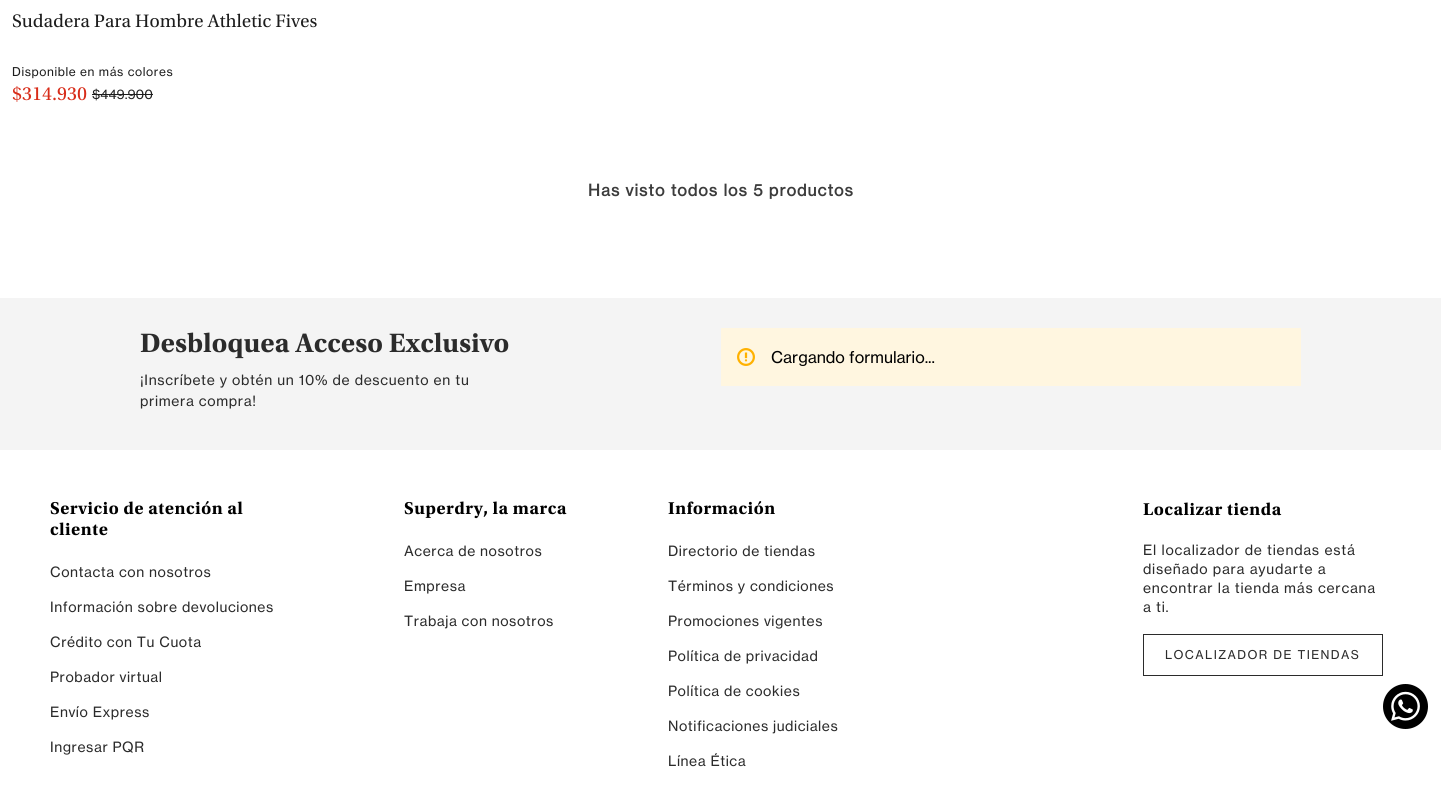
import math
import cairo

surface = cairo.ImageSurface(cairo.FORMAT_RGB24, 1441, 791)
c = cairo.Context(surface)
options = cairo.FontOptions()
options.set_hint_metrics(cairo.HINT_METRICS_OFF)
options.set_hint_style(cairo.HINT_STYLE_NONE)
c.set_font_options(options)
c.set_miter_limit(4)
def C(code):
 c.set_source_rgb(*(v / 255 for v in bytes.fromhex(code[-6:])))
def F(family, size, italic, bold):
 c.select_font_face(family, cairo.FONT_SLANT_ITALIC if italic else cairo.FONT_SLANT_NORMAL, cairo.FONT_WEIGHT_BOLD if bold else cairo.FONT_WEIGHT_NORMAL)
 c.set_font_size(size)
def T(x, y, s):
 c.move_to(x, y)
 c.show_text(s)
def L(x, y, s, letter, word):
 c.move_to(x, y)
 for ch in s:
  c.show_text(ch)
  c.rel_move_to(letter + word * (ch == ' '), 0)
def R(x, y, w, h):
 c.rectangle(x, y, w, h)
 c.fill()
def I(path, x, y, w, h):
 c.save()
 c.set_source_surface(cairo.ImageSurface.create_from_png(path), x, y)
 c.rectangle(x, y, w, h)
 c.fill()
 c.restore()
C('ffffff')
c.paint()
I('1.png',12,13,305,15)
F('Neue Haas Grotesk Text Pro',12,0,0)
C('1d1d1d')
L(12,76,'Disponible en más colores',.6,0)
I('2.png',12,86,75,16)
F('Neue Haas Grotesk Text Pro',13,0,0)
T(92,99,'$449.900')
R(92,94,61,1)
F('Neue Haas Grotesk Text Pro',16,0,1)
C('3c3c3c')
L(588,196,'Has visto todos los 5 productos',1,0)
C('f4f4f4')
R(0,298,1441,152)
C('fff6e0')
R(721,328,580,58)
I('3.png',737,348,18,18)
F('Neue Haas Grotesk Text Pro',16,0,0)
C('000000')
T(771,363,'Cargando formulario...')
I('4.png',140,332,369,27)
F('Neue Haas Grotesk Text Pro',14,0,0)
C('2b2b2b')
L(140,385,'¡Inscríbete y obtén un 10% de descuento en tu',.65,0)
L(140,406,'primera compra!',.65,0)
I('5.png',50,501,193,14)
I('6.png',50,522,58,14)
L(50,577,'Contacta con nosotros',.55,0)
L(50,612,'Información sobre devoluciones',.55,0)
L(50,647,'Crédito con Tu Cuota',.55,0)
L(50,682,'Probador virtual',.55,0)
L(50,717,'Envío Express',.55,0)
L(50,752,'Ingresar PQR',.55,0)
I('7.png',404,501,163,18)
L(404,556,'Acerca de nosotros',.55,0)
L(404,591,'Empresa',.55,0)
L(404,626,'Trabaja con nosotros',.55,0)
I('8.png',668,501,107,14)
L(668,556,'Directorio de tiendas',.55,0)
L(668,591,'Términos y condiciones',.55,0)
L(668,626,'Promociones vigentes',.55,0)
L(668,661,'Política de privacidad',.55,0)
L(668,696,'Política de cookies',.55,0)
L(668,731,'Notificaciones judiciales',.55,0)
L(668,766,'Línea Ética',.55,0)
I('9.png',1143,502,139,14)
L(1143,555,'El localizador de tiendas está',.75,0)
L(1143,574,'diseñado para ayudarte a',.75,0)
L(1143,593,'encontrar la tienda más cercana',.75,0)
L(1143,612,'a ti.',.75,0)
c.rectangle(1143.5,634.5,239,41)
c.set_line_width(1)
c.stroke()
F('Neue Haas Grotesk Text Pro',12,0,0)
L(1165,659,'LOCALIZADOR DE TIENDAS',1.4,0)
C('000000')
c.new_path()
c.arc(1405.5,706.5,22.5,0,2 * math.pi)
c.fill()
I('10.png',1391,691,29,30)
surface.write_to_png('o.png')
